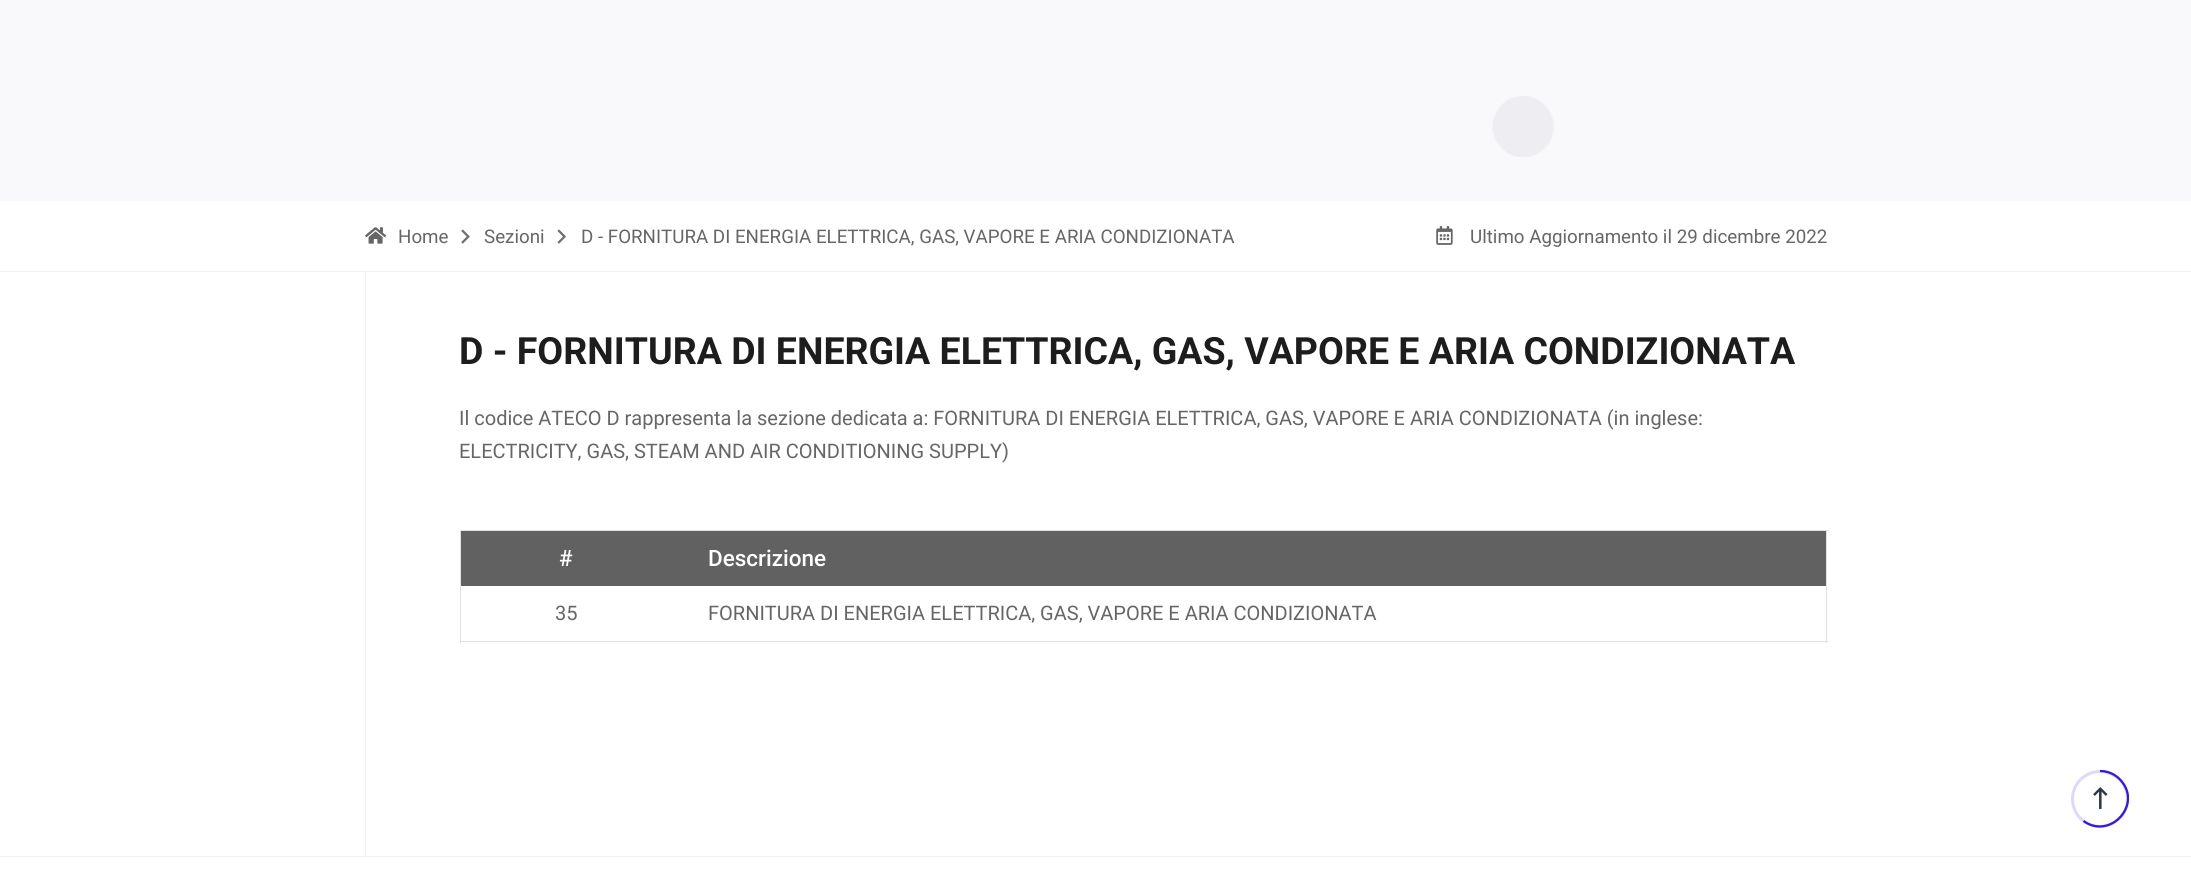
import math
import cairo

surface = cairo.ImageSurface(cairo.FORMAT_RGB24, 2191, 889)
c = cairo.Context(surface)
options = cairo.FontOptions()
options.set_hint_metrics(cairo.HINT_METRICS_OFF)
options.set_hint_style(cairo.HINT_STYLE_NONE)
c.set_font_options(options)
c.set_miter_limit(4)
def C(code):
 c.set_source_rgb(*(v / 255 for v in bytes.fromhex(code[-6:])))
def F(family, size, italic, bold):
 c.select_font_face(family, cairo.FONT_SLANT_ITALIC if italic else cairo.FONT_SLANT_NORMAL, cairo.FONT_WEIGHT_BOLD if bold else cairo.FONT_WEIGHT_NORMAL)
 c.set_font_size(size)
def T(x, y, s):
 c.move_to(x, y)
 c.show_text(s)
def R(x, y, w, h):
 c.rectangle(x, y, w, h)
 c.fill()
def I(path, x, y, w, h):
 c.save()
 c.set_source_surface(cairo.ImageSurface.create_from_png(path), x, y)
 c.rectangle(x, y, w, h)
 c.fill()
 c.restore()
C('ffffff')
c.paint()
C('f9f9fb')
R(0,0,2191,201)
I('1.png',1492,96,62,61)
C('f1f1f1')
R(0,271,2191,1)
I('2.png',365,227,22,17)
F('Roboto',18.75,0,0)
C('666666')
T(398,243,'Home')
I('3.png',461,229,9,15)
T(484,243,'Sezioni')
I('4.png',557,229,9,15)
T(581,243,'D - FORNITURA DI ENERGIA ELETTRICA, GAS, VAPORE E ARIA CONDIZIONATA')
I('5.png',1436,226,17,19)
T(1470,243,'Ultimo Aggiornamento il 29 dicembre 2022')
C('f1f1f1')
R(365,273,1,583)
F('Roboto',37.5,0,1)
C('1d1d1d')
T(459,364,'D - FORNITURA DI ENERGIA ELETTRICA, GAS, VAPORE E ARIA CONDIZIONATA')
F('Roboto',20,0,0)
C('666666')
T(459,425,'Il codice ATECO D rappresenta la sezione dedicata a: FORNITURA DI ENERGIA ELETTRICA, GAS, VAPORE E ARIA CONDIZIONATA (in inglese:')
T(459,458,'ELECTRICITY, GAS, STEAM AND AIR CONDITIONING SUPPLY)')
C('dee2e6')
R(460,530,1368,1)
R(1826,530,1,113)
R(460,641,1368,1)
R(460,530,1,113)
C('616161')
R(461,531,1365,55)
F('Roboto Medium',22.5,0,0)
C('ffffff')
T(559,566,'#')
T(708,566,'Descrizione')
F('Roboto',20,0,0)
C('666666')
T(555,620,'35')
T(708,620,'FORNITURA DI ENERGIA ELETTRICA, GAS, VAPORE E ARIA CONDIZIONATA')
c.new_path()
c.arc(2100,799,27.5,0,2 * math.pi)
C('dfd8fe')
c.set_line_width(3)
c.stroke()
c.save()
c.rectangle(2071,770,58,58)
c.clip()
c.new_path()
c.move_to(2100,771)
c.curve_to(2107.5,771,2114.5,774,2119.5,779)
c.curve_to(2144,803.5,2110.5,840.5,2083.5,821)
C('3817e3')
c.set_line_width(2.3)
c.stroke()
c.restore()
I('6.png',2093,787,15,23)
C('f1f1f1')
R(0,856,2191,1)
surface.write_to_png('o.png')
